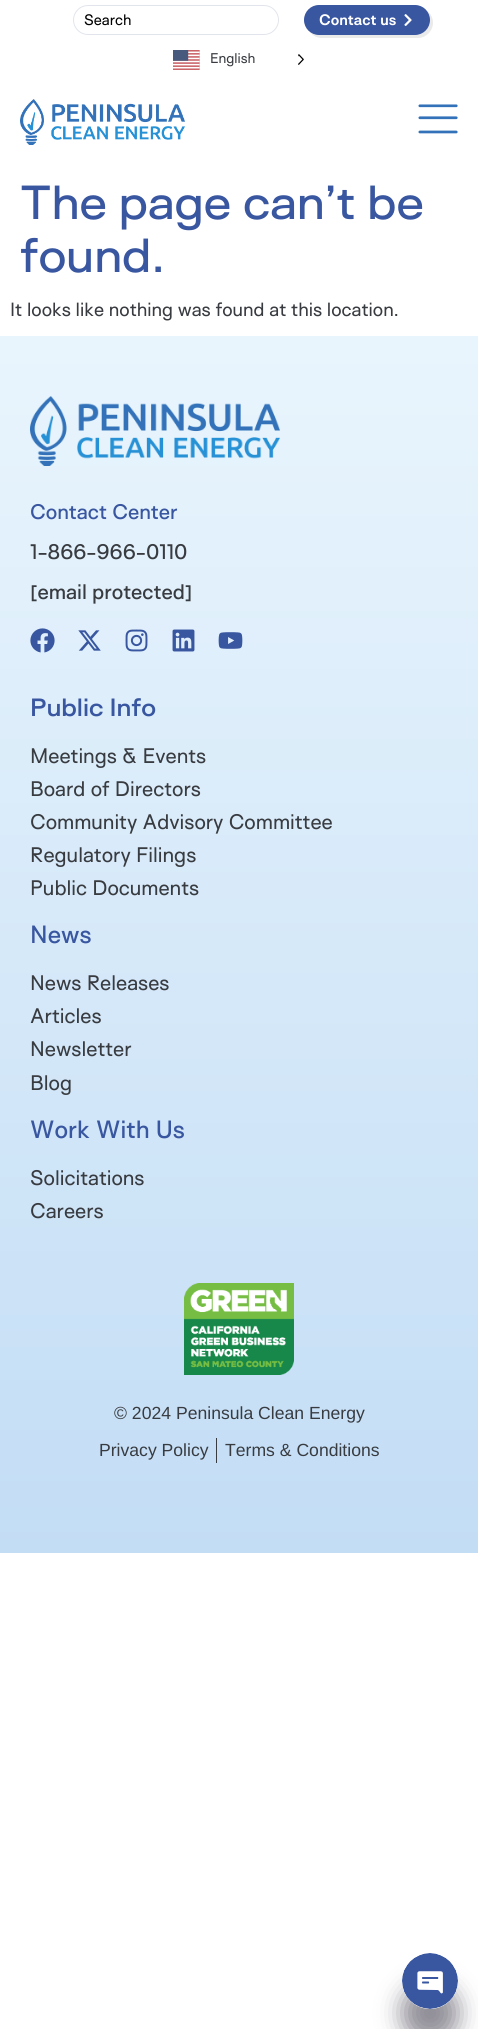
import math
import cairo

surface = cairo.ImageSurface(cairo.FORMAT_RGB24, 478, 2029)
c = cairo.Context(surface)
options = cairo.FontOptions()
options.set_hint_metrics(cairo.HINT_METRICS_OFF)
options.set_hint_style(cairo.HINT_STYLE_NONE)
c.set_font_options(options)
c.set_miter_limit(4)
def C(code):
 c.set_source_rgb(*(v / 255 for v in bytes.fromhex(code[-6:])))
def F(family, size, italic, bold):
 c.select_font_face(family, cairo.FONT_SLANT_ITALIC if italic else cairo.FONT_SLANT_NORMAL, cairo.FONT_WEIGHT_BOLD if bold else cairo.FONT_WEIGHT_NORMAL)
 c.set_font_size(size)
def T(x, y, s):
 c.move_to(x, y)
 c.show_text(s)
def R(x, y, w, h):
 c.rectangle(x, y, w, h)
 c.fill()
def Q(x, y, w, h, r):
 c.new_sub_path()
 for i, (u, v) in enumerate([(x + w - r, y + h - r), (x + r, y + h - r), (x + r, y + r), (x + w - r, y + r)]):
  c.arc(u, v, r, i * math.pi / 2, (i + 1) * math.pi / 2)
 c.close_path()
def S(x, y, w, h, r, blur, alpha):
 c.push_group_with_content(cairo.CONTENT_ALPHA)
 c.set_operator(cairo.OPERATOR_SOURCE)
 for i in range(15, -16, -2):
  e = blur * i / 6
  if min(w, h) + 2 * e > 0:
   c.set_source_rgba(0, 0, 0, alpha * math.erfc((i - 1) / 8.5) / 2)
   Q(x - e, y - e, w + 2 * e, h + 2 * e, max(0, min(r + e + blur * .6, min(w, h) / 2 + e)))
   c.fill()
 c.mask(c.pop_group())
def I(path, x, y, w, h):
 c.save()
 c.set_source_surface(cairo.ImageSurface.create_from_png(path), x, y)
 c.rectangle(x, y, w, h)
 c.fill()
 c.restore()
C('ffffff')
c.paint()
Q(73.5,5.5,205,29,14.5)
C('e1e5eb')
c.set_line_width(1)
c.stroke()
F('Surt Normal',14,0,0)
C('000000')
T(84,25,'Search')
C('eaeaea')
c.new_path()
c.move_to(310,32)
c.curve_to(313,36,317,38,322,38)
c.line_to(418,38)
c.curve_to(426,38,433,31,433,23)
c.curve_to(433,18,431,14,427,11)
c.curve_to(429,14,430,17,430,20)
c.curve_to(430,28,423,35,415,35)
c.line_to(319,35)
c.curve_to(316,35,313,34,310,32)
c.close_path()
c.fill()
C('3956a0')
Q(304,5,126,30,15)
c.fill()
F('Surt Normal',14,0,1)
C('ffffff')
T(319,25,'Contact us')
I('1.png',404,14,8,12)
I('2.png',173,50,27,20)
F('Surt Normal',13,0,0)
C('383b40')
T(210,63,'English')
I('3.png',298,54,6,11)
I('4.png',20,99,165,46)
I('5.png',418,104,40,30)
F('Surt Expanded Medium',44,0,0)
C('3956a0')
T(20,219,'The page can’t be')
T(20,272,'found.')
F('Surt Normal',17.6,0,0)
C('383b40')
T(10,316,'It looks like nothing was found at this location.')
gradient = cairo.LinearGradient(239,336,239,1553)
gradient.add_color_stop_rgba(0,0.914,0.961,0.992,1)
gradient.add_color_stop_rgba(1,0.765,0.867,0.961,1)
c.set_source(gradient)
R(0,336,478,1217)
I('6.png',30,396,250,70)
F('Surt Normal Medium',19.4,0,0)
C('3956a0')
T(30,519,'Contact Center')
C('383b40')
T(30,559,'1-866-966-0110')
T(30,599,'[email protected]')
I('7.png',30,628,25,25)
I('8.png',78,630,23,21)
I('9.png',125,629,23,23)
I('10.png',172,629,23,23)
I('11.png',218,632,25,17)
F('Surt Expanded SemiBold',23,0,0)
C('3956a0')
T(30,716,'Public Info')
F('Surt Normal',19.4,0,0)
C('383b40')
T(30,763,'Meetings & Events')
T(30,796,'Board of Directors')
T(30,829,'Community Advisory Committee')
T(30,862,'Regulatory Filings')
T(30,895,'Public Documents')
F('Surt Normal Medium',23,0,0)
C('3956a0')
T(30,943,'News')
F('Surt Normal',19.4,0,0)
C('383b40')
T(30,990,'News Releases')
T(30,1023,'Articles')
T(30,1056,'Newsletter')
T(30,1090,'Blog')
F('Surt Normal Medium',23,0,0)
C('3956a0')
T(30,1138,'Work With Us')
F('Surt Normal',19.4,0,0)
C('383b40')
T(30,1185,'Solicitations')
T(30,1218,'Careers')
I('12.png',184,1283,110,92)
F('Liberation Sans',17.6,0,0)
T(114,1419,'© 2024 Peninsula Clean Energy')
T(99,1456,'Privacy Policy')
R(216,1438,1,25)
T(225,1456,'Terms & Conditions')
C('231e30')
S(402,1985,56,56,28,12,.5)
C('ffffff')
c.arc(430,1981,28,0,2 * math.pi)
c.fill()
I('13.png',402,1953,56,56)
surface.write_to_png('o.png')
